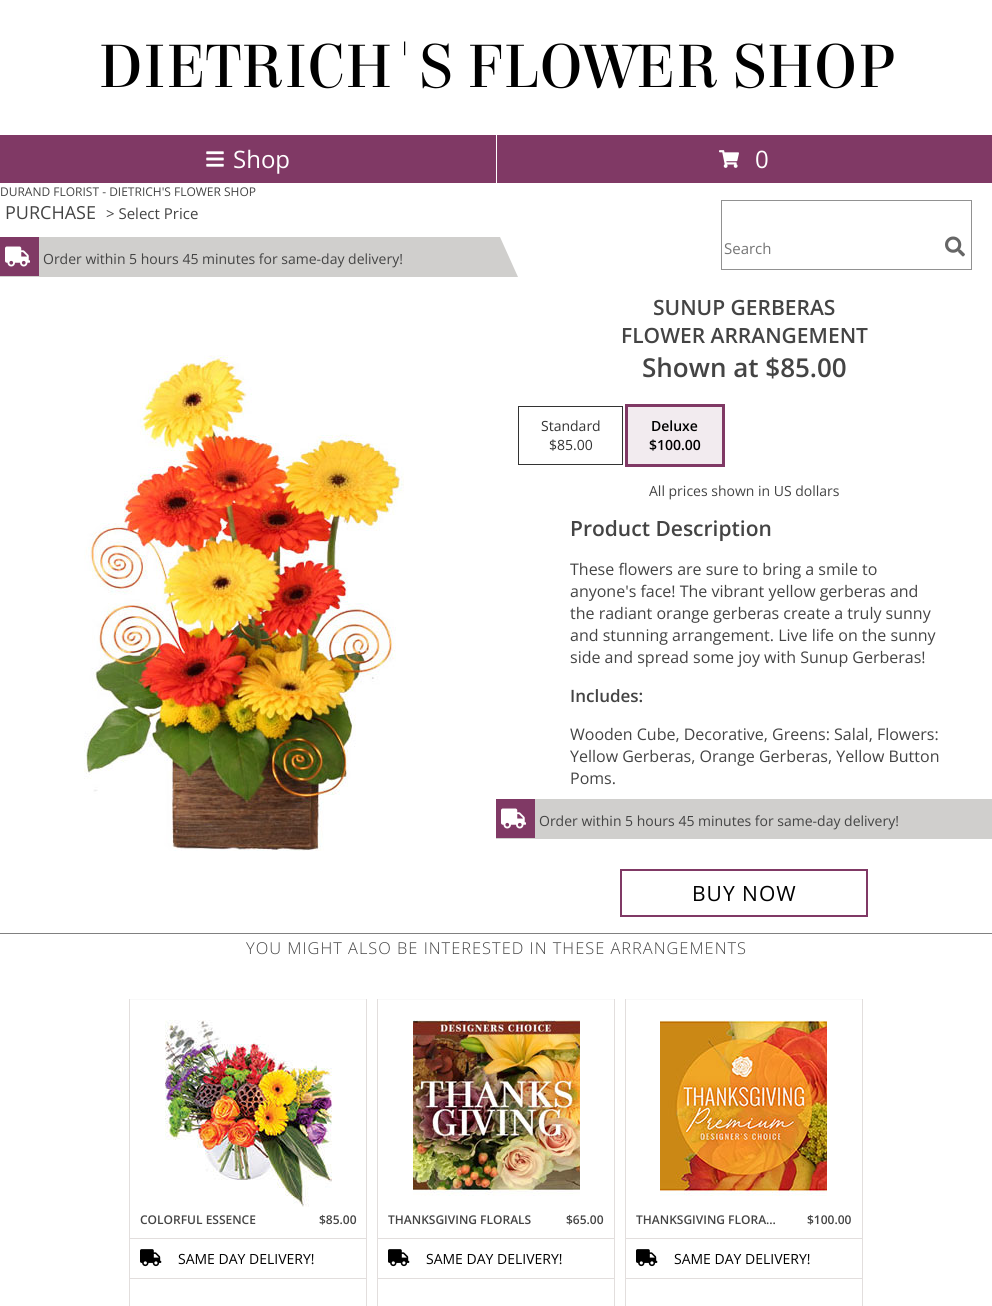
import math
import cairo

surface = cairo.ImageSurface(cairo.FORMAT_RGB24, 992, 1306)
c = cairo.Context(surface)
options = cairo.FontOptions()
options.set_hint_metrics(cairo.HINT_METRICS_OFF)
options.set_hint_style(cairo.HINT_STYLE_NONE)
c.set_font_options(options)
c.set_miter_limit(4)
def C(code):
 c.set_source_rgb(*(v / 255 for v in bytes.fromhex(code[-6:])))
def F(family, size, italic, bold):
 c.select_font_face(family, cairo.FONT_SLANT_ITALIC if italic else cairo.FONT_SLANT_NORMAL, cairo.FONT_WEIGHT_BOLD if bold else cairo.FONT_WEIGHT_NORMAL)
 c.set_font_size(size)
def T(x, y, s):
 c.move_to(x, y)
 c.show_text(s)
def L(x, y, s, letter, word):
 c.move_to(x, y)
 for ch in s:
  c.show_text(ch)
  c.rel_move_to(letter + word * (ch == ' '), 0)
def R(x, y, w, h):
 c.rectangle(x, y, w, h)
 c.fill()
def I(path, x, y, w, h):
 c.save()
 c.set_source_surface(cairo.ImageSurface.create_from_png(path), x, y)
 c.rectangle(x, y, w, h)
 c.fill()
 c.restore()
C('ffffff')
c.paint()
F('Elsie',65,0,0)
C('000000')
T(98,87,'DIETRICH\'S FLOWER SHOP')
C('803965')
R(0,135,496,48)
I('1.png',206,151,18,16)
F('Open Sans',24,0,0)
C('ffffff')
T(233,168,'Shop')
C('803965')
R(497,135,495,48)
I('2.png',719,150,20,18)
C('ffffff')
T(755,168,'0')
F('Open Sans',12,0,0)
C('444444')
T(0,196,'DURAND FLORIST - DIETRICH\'S FLOWER SHOP')
F('Open Sans',18,0,0)
T(5,219,'PURCHASE')
F('Open Sans',15,0,0)
T(106,219,'> Select Price')
c.rectangle(721.5,200.5,250,69)
C('919191')
c.set_line_width(1)
c.stroke()
C('757575')
T(724,254,'Search')
I('3.png',945,236,20,21)
C('d0cfcd')
c.new_path()
c.move_to(518,277)
c.line_to(0,277)
c.line_to(0,237)
c.line_to(500,237)
c.close_path()
c.fill()
C('803965')
R(0,237,39,39)
I('4.png',5,246,25,21)
F('Open Sans',14,0,0)
C('444444')
T(43,264,'Order within 5 hours 45 minutes for same-day delivery!')
I('5.png',84,355,320,496)
F('Open Sans SemiBold',21,0,0)
T(653,315,'SUNUP GERBERAS')
T(621,343,'FLOWER ARRANGEMENT')
F('Open Sans SemiBold',26,0,0)
T(642,377,'Shown at $85.00')
c.rectangle(518.5,406.5,104,58)
C('333333')
c.stroke()
F('Open Sans',14,0,0)
T(541,431,'Standard')
T(549,450,'$85.00')
c.rectangle(626.5,405.5,97,60)
C('803965')
c.set_line_width(3)
c.stroke()
C('f2ebef')
R(628,407,94,57)
F('Open Sans SemiBold',14,0,0)
C('000000')
T(651,431,'Deluxe')
T(649,450,'$100.00')
F('Open Sans',14,0,0)
C('444444')
T(649,496,'All prices shown in US dollars')
F('Open Sans SemiBold',21,0,0)
T(570,536,'Product Description')
F('Open Sans',16,0,0)
T(570,575,'These flowers are sure to bring a smile to')
T(570,597,'anyone\'s face! The vibrant yellow gerberas and')
T(570,619,'the radiant orange gerberas create a truly sunny')
T(570,641,'and stunning arrangement. Live life on the sunny')
T(570,663,'side and spread some joy with Sunup Gerberas!')
F('Open Sans SemiBold',17,0,0)
T(570,702,'Includes:')
F('Open Sans',16,0,0)
T(570,740,'Wooden Cube, Decorative, Greens: Salal, Flowers:')
T(570,762,'Yellow Gerberas, Orange Gerberas, Yellow Button')
T(570,784,'Poms.')
C('d0cfcd')
R(496,799,496,40)
C('803965')
R(496,799,39,39)
I('4.png',501,808,25,21)
F('Open Sans',14,0,0)
C('444444')
T(539,826,'Order within 5 hours 45 minutes for same-day delivery!')
c.rectangle(621,870,246,46)
C('803965')
c.set_line_width(2)
c.stroke()
F('Open Sans',21,0,0)
C('000000')
L(692,901,'BUY NOW',1,0)
C('808080')
R(0,933,992,1)
F('Open Sans Light',16.4,0,0)
C('444444')
L(246,954,'YOU MIGHT ALSO BE INTERESTED IN THESE ARRANGEMENTS',1,0)
C('f9f9f9')
R(129,999,238,1)
C('e2dedd')
R(366,999,1,307)
R(129,999,1,307)
I('6.png',165,1020,167,187)
F('Open Sans SemiBold',12,0,0)
C('444444')
T(140,1224,'COLORFUL ESSENCE')
T(319,1224,'$85.00')
C('e2dedd')
R(130,1238,236,1)
I('7.png',140,1249,22,18)
F('Open Sans',14,0,0)
C('000000')
T(178,1264,'SAME DAY DELIVERY!')
C('e2dedd')
R(130,1278,236,1)
C('f9f9f9')
R(377,999,238,1)
C('e2dedd')
R(614,999,1,307)
R(377,999,1,307)
I('8.png',413,1020,167,176)
F('Open Sans SemiBold',12,0,0)
C('444444')
T(388,1224,'THANKSGIVING FLORALS')
T(566,1224,'$65.00')
C('e2dedd')
R(378,1238,236,1)
I('7.png',388,1249,22,18)
F('Open Sans',14,0,0)
C('000000')
T(426,1264,'SAME DAY DELIVERY!')
C('e2dedd')
R(378,1278,236,1)
C('f9f9f9')
R(625,999,238,1)
C('e2dedd')
R(862,999,1,307)
R(625,999,1,307)
I('9.png',660,1020,167,176)
F('Open Sans SemiBold',12,0,0)
C('444444')
T(636,1224,'THANKSGIVING FLORA…')
T(807,1224,'$100.00')
C('e2dedd')
R(626,1238,236,1)
I('7.png',636,1249,22,18)
F('Open Sans',14,0,0)
C('000000')
T(674,1264,'SAME DAY DELIVERY!')
C('e2dedd')
R(626,1278,236,1)
surface.write_to_png('o.png')
